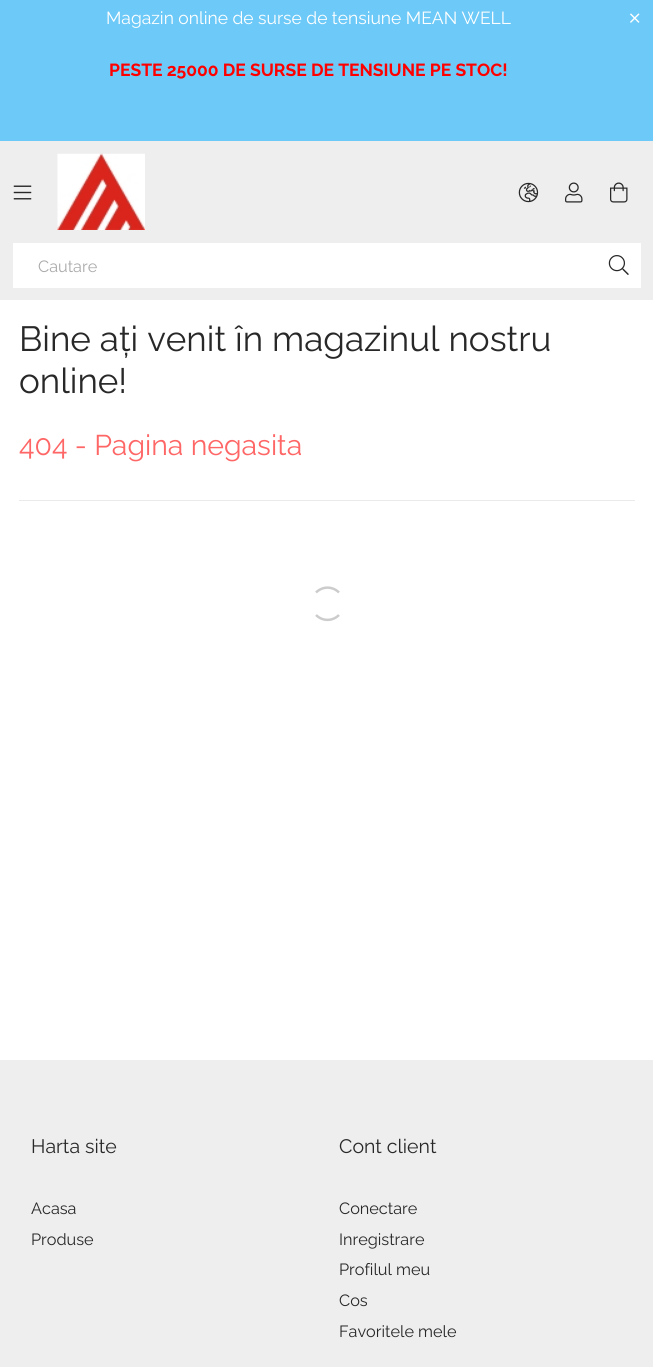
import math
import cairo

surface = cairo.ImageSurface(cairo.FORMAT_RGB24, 653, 1367)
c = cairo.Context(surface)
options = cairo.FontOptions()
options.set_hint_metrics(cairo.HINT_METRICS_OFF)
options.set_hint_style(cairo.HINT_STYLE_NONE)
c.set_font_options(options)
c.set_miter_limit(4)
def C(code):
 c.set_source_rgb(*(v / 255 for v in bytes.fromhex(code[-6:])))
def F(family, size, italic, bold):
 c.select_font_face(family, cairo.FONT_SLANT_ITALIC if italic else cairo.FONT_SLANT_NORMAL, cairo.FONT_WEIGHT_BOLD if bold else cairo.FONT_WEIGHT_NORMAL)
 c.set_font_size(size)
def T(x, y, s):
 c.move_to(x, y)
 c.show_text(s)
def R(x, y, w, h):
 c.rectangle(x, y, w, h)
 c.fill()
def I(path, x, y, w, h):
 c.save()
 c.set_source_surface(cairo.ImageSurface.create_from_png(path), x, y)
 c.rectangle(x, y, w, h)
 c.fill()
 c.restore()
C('ffffff')
c.paint()
C('6dc9f7')
R(0,0,653,141)
F('Raleway',17.5,0,0)
C('ffffff')
T(106,24,'Magazin online de surse de tensiune MEAN WELL')
I('1.png',630,13,10,10)
F('Raleway',17.5,0,1)
C('ff0000')
T(109,76,'PESTE 25000 DE SURSE DE TENSIUNE PE STOC!')
C('eeeeee')
R(0,141,653,159)
I('2.png',13,185,19,15)
I('3.png',57,153,88,77)
I('4.png',518,182,21,21)
I('5.png',565,182,18,21)
I('6.png',610,182,18,21)
C('ffffff')
R(13,243,628,45)
F('Raleway',16.25,0,0)
C('aaaaaa')
T(38,272,'Cautare')
I('7.png',608,255,21,20)
F('Raleway',35,0,0)
C('282828')
T(19,351,'Bine ați venit în magazinul nostru')
T(19,393,'online!')
C('eaeaea')
R(19,500,616,1)
F('Raleway',28.5,0,0)
C('ff6666')
T(19,455,'404 - Pagina negasita')
c.new_path()
c.move_to(316,592.5)
c.curve_to(322.5,586,332.5,586,339,592.5)
c.move_to(339,615)
c.curve_to(332.5,621.5,322.5,621.5,316,615)
C('cccccc')
c.set_line_width(2.5)
c.stroke()
C('eeeeee')
R(0,1060,653,307)
F('Raleway',19.5,0,0)
C('282828')
T(31,1153,'Harta site')
F('Raleway',16.25,0,0)
T(31,1214,'Acasa')
T(31,1245,'Produse')
F('Raleway',19.5,0,0)
T(339,1153,'Cont client')
F('Raleway',16.25,0,0)
T(339,1214,'Conectare')
T(339,1245,'Inregistrare')
T(339,1275,'Profilul meu')
T(339,1306,'Cos')
T(339,1337,'Favoritele mele')
surface.write_to_png('o.png')
